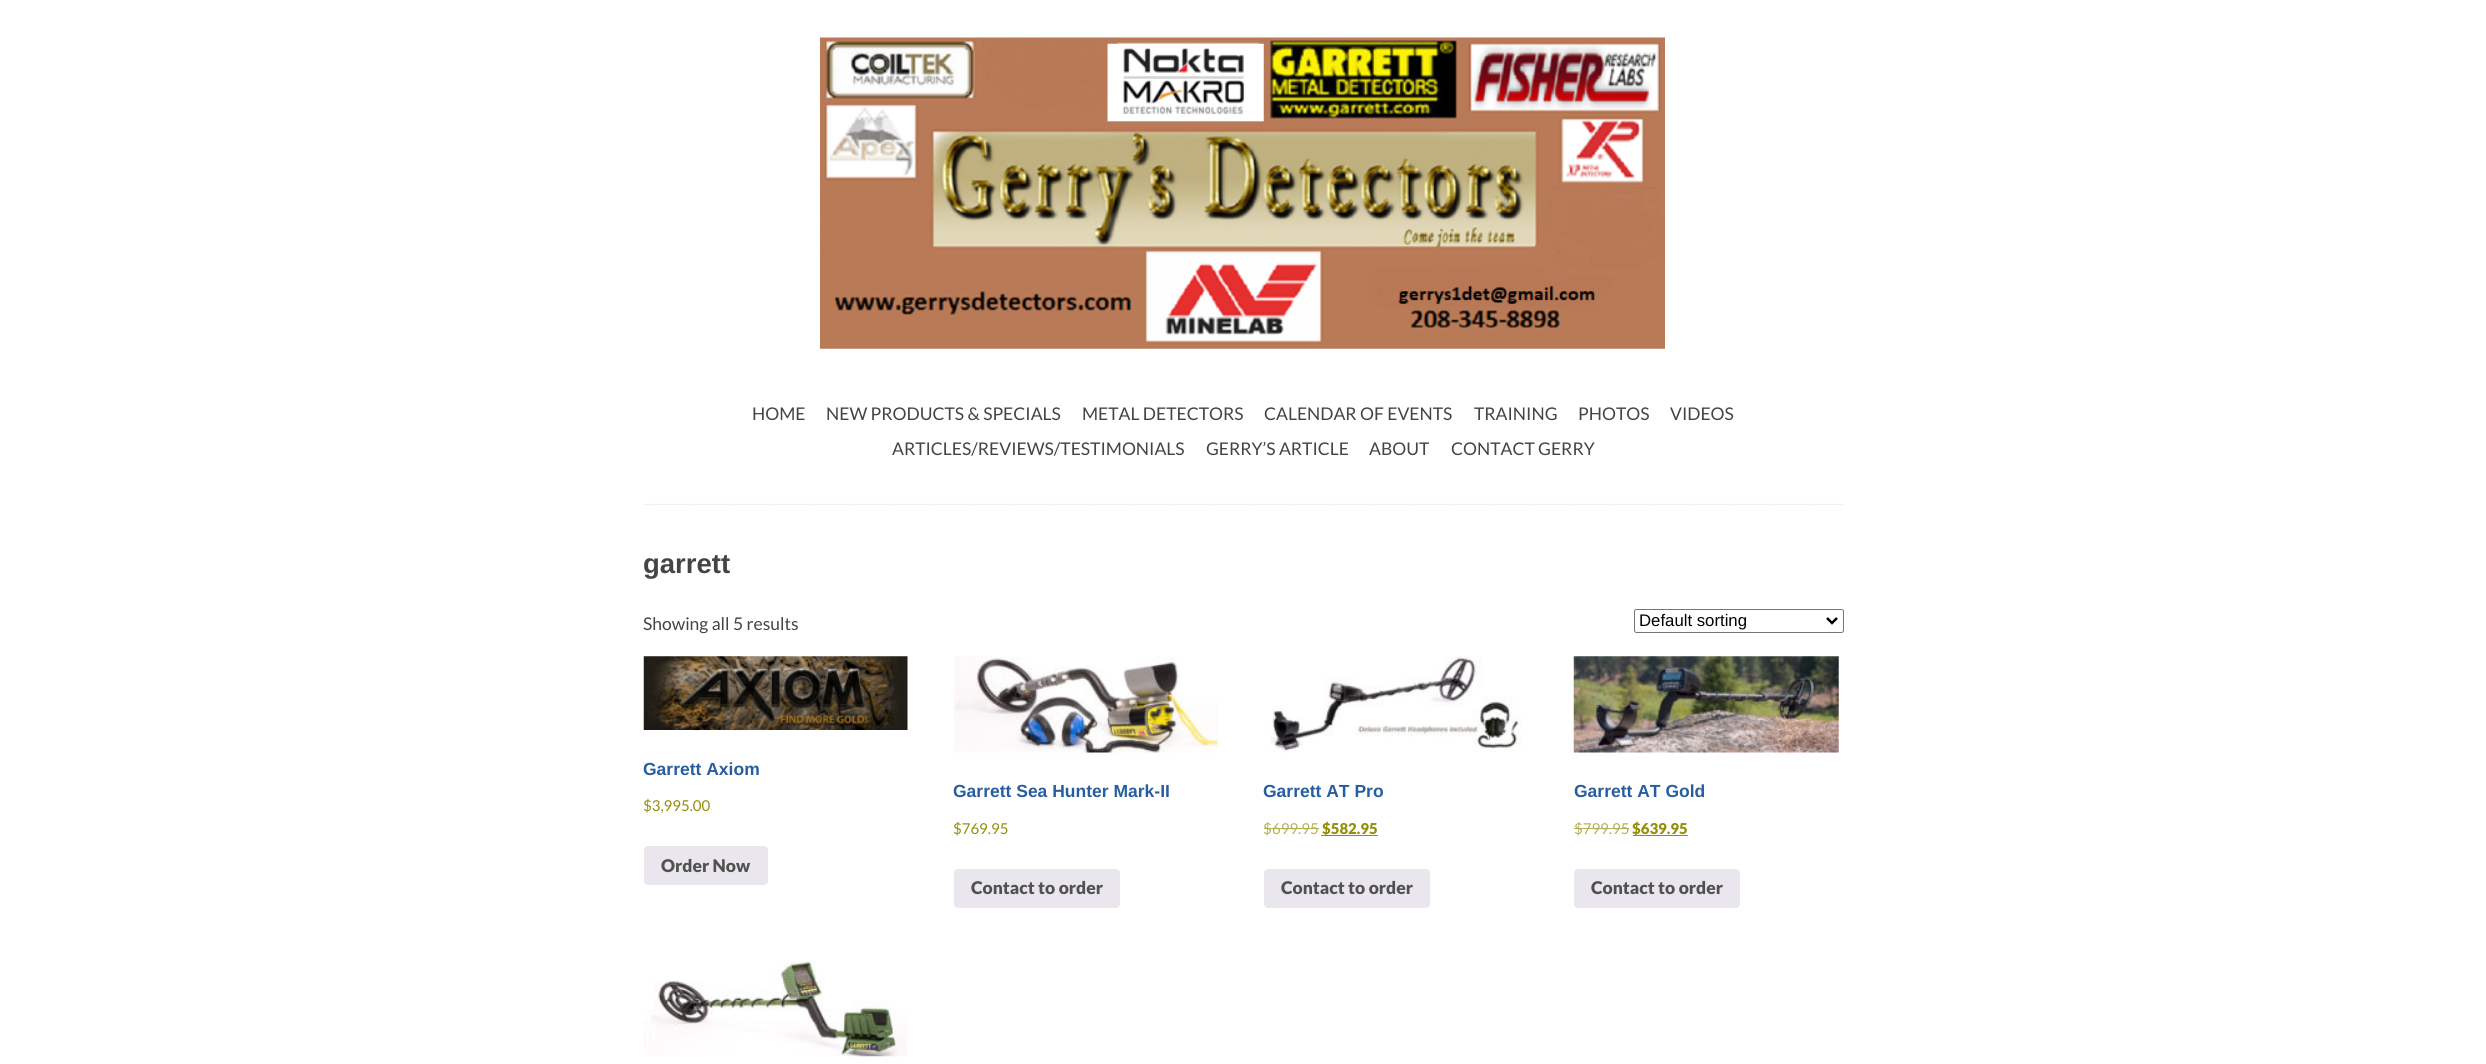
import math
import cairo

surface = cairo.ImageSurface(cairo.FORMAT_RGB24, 2486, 1064)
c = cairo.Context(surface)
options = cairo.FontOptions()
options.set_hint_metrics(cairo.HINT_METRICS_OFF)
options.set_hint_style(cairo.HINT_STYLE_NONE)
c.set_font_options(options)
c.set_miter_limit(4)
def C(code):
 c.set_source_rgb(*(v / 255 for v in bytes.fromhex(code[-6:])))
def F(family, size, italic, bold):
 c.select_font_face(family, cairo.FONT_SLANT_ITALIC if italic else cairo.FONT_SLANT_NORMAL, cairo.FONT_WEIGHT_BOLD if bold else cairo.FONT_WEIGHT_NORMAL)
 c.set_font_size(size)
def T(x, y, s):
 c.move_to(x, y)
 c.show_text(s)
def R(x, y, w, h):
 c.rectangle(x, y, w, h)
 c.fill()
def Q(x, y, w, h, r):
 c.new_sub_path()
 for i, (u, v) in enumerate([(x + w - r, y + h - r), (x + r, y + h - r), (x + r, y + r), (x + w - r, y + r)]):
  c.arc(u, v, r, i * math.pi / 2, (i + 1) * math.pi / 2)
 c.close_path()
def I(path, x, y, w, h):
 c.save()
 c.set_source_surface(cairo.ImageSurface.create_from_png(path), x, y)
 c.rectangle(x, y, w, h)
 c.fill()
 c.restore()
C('ffffff')
c.paint()
c.new_path()
c.move_to(644,504.5)
c.line_to(1844,504.5)
C('e3e3e3')
c.set_line_width(1.2)
c.set_dash([1.25,1.25])
c.stroke()
I('1.png',820,37,845,312)
F('Lato',17.5,0,0)
C('444444')
T(752,420,'HOME')
T(826,420,'NEW PRODUCTS & SPECIALS')
T(1082,420,'METAL DETECTORS')
T(1264,420,'CALENDAR OF EVENTS')
T(1474,420,'TRAINING')
T(1578,420,'PHOTOS')
T(1670,420,'VIDEOS')
T(892,455,'ARTICLES/REVIEWS/TESTIMONIALS')
T(1206,455,'GERRY’S ARTICLE')
T(1369,455,'ABOUT')
T(1451,455,'CONTACT GERRY')
F('Liberation Sans',27.5,0,1)
T(643,573,'garrett')
F('Lato',17.5,0,0)
T(643,630,'Showing all 5 results')
Q(1634.5,609.5,209,23,2)
C('767676')
c.set_line_width(1)
c.set_dash([])
c.stroke()
c.new_path()
c.move_to(1827,618)
c.line_to(1832,623)
c.line_to(1837,618)
C('000000')
c.set_line_width(2.5)
c.stroke()
F('Liberation Sans',16.75,0,0)
T(1639,626,'Default sorting')
I('2.png',643,656,265,74)
F('Liberation Sans',17.5,0,1)
C('275ea0')
T(643,775,'Garrett Axiom')
F('Lato',15,0,0)
C('958e09')
T(643,811,'$3,995.00')
C('e9e6ed')
Q(644,846,124,39,4)
c.fill()
F('Lato Black',17.5,0,0)
C('515151')
T(661,872,'Order Now')
I('3.png',954,656,264,97)
F('Liberation Sans',17.5,0,1)
C('275ea0')
T(953,797,'Garrett Sea Hunter Mark-II')
F('Lato',15,0,0)
C('958e09')
T(953,834,'$769.95')
C('e9e6ed')
Q(954,869,166,39,4)
c.fill()
F('Lato Black',17.5,0,0)
C('515151')
T(971,894,'Contact to order')
I('4.png',1270,656,252,97)
F('Liberation Sans',17.5,0,1)
C('275ea0')
T(1263,797,'Garrett AT Pro')
F('Lato',15,0,0)
C('b5b053')
T(1263,834,'$')
R(1264,828,9,1)
R(1273,828,46,1)
T(1272,834,'699.95')
C('958e09')
R(1321,835,57,1)
F('Lato Black',15,0,0)
T(1322,834,'$582.95')
C('e9e6ed')
Q(1264,869,166,39,4)
c.fill()
F('Lato Black',17.5,0,0)
C('515151')
T(1281,894,'Contact to order')
I('5.png',1573,656,266,97)
F('Liberation Sans',17.5,0,1)
C('275ea0')
T(1574,797,'Garrett AT Gold')
F('Lato',15,0,0)
C('b5b053')
T(1574,834,'$799.95')
R(1574,828,55,1)
C('958e09')
R(1633,835,7,1)
F('Lato Black',15,0,0)
T(1632,834,'$639.95')
R(1640,835,48,1)
C('e9e6ed')
Q(1574,869,166,39,4)
c.fill()
F('Lato Black',17.5,0,0)
C('515151')
T(1591,894,'Contact to order')
I('6.png',644,960,264,97)
surface.write_to_png('o.png')
